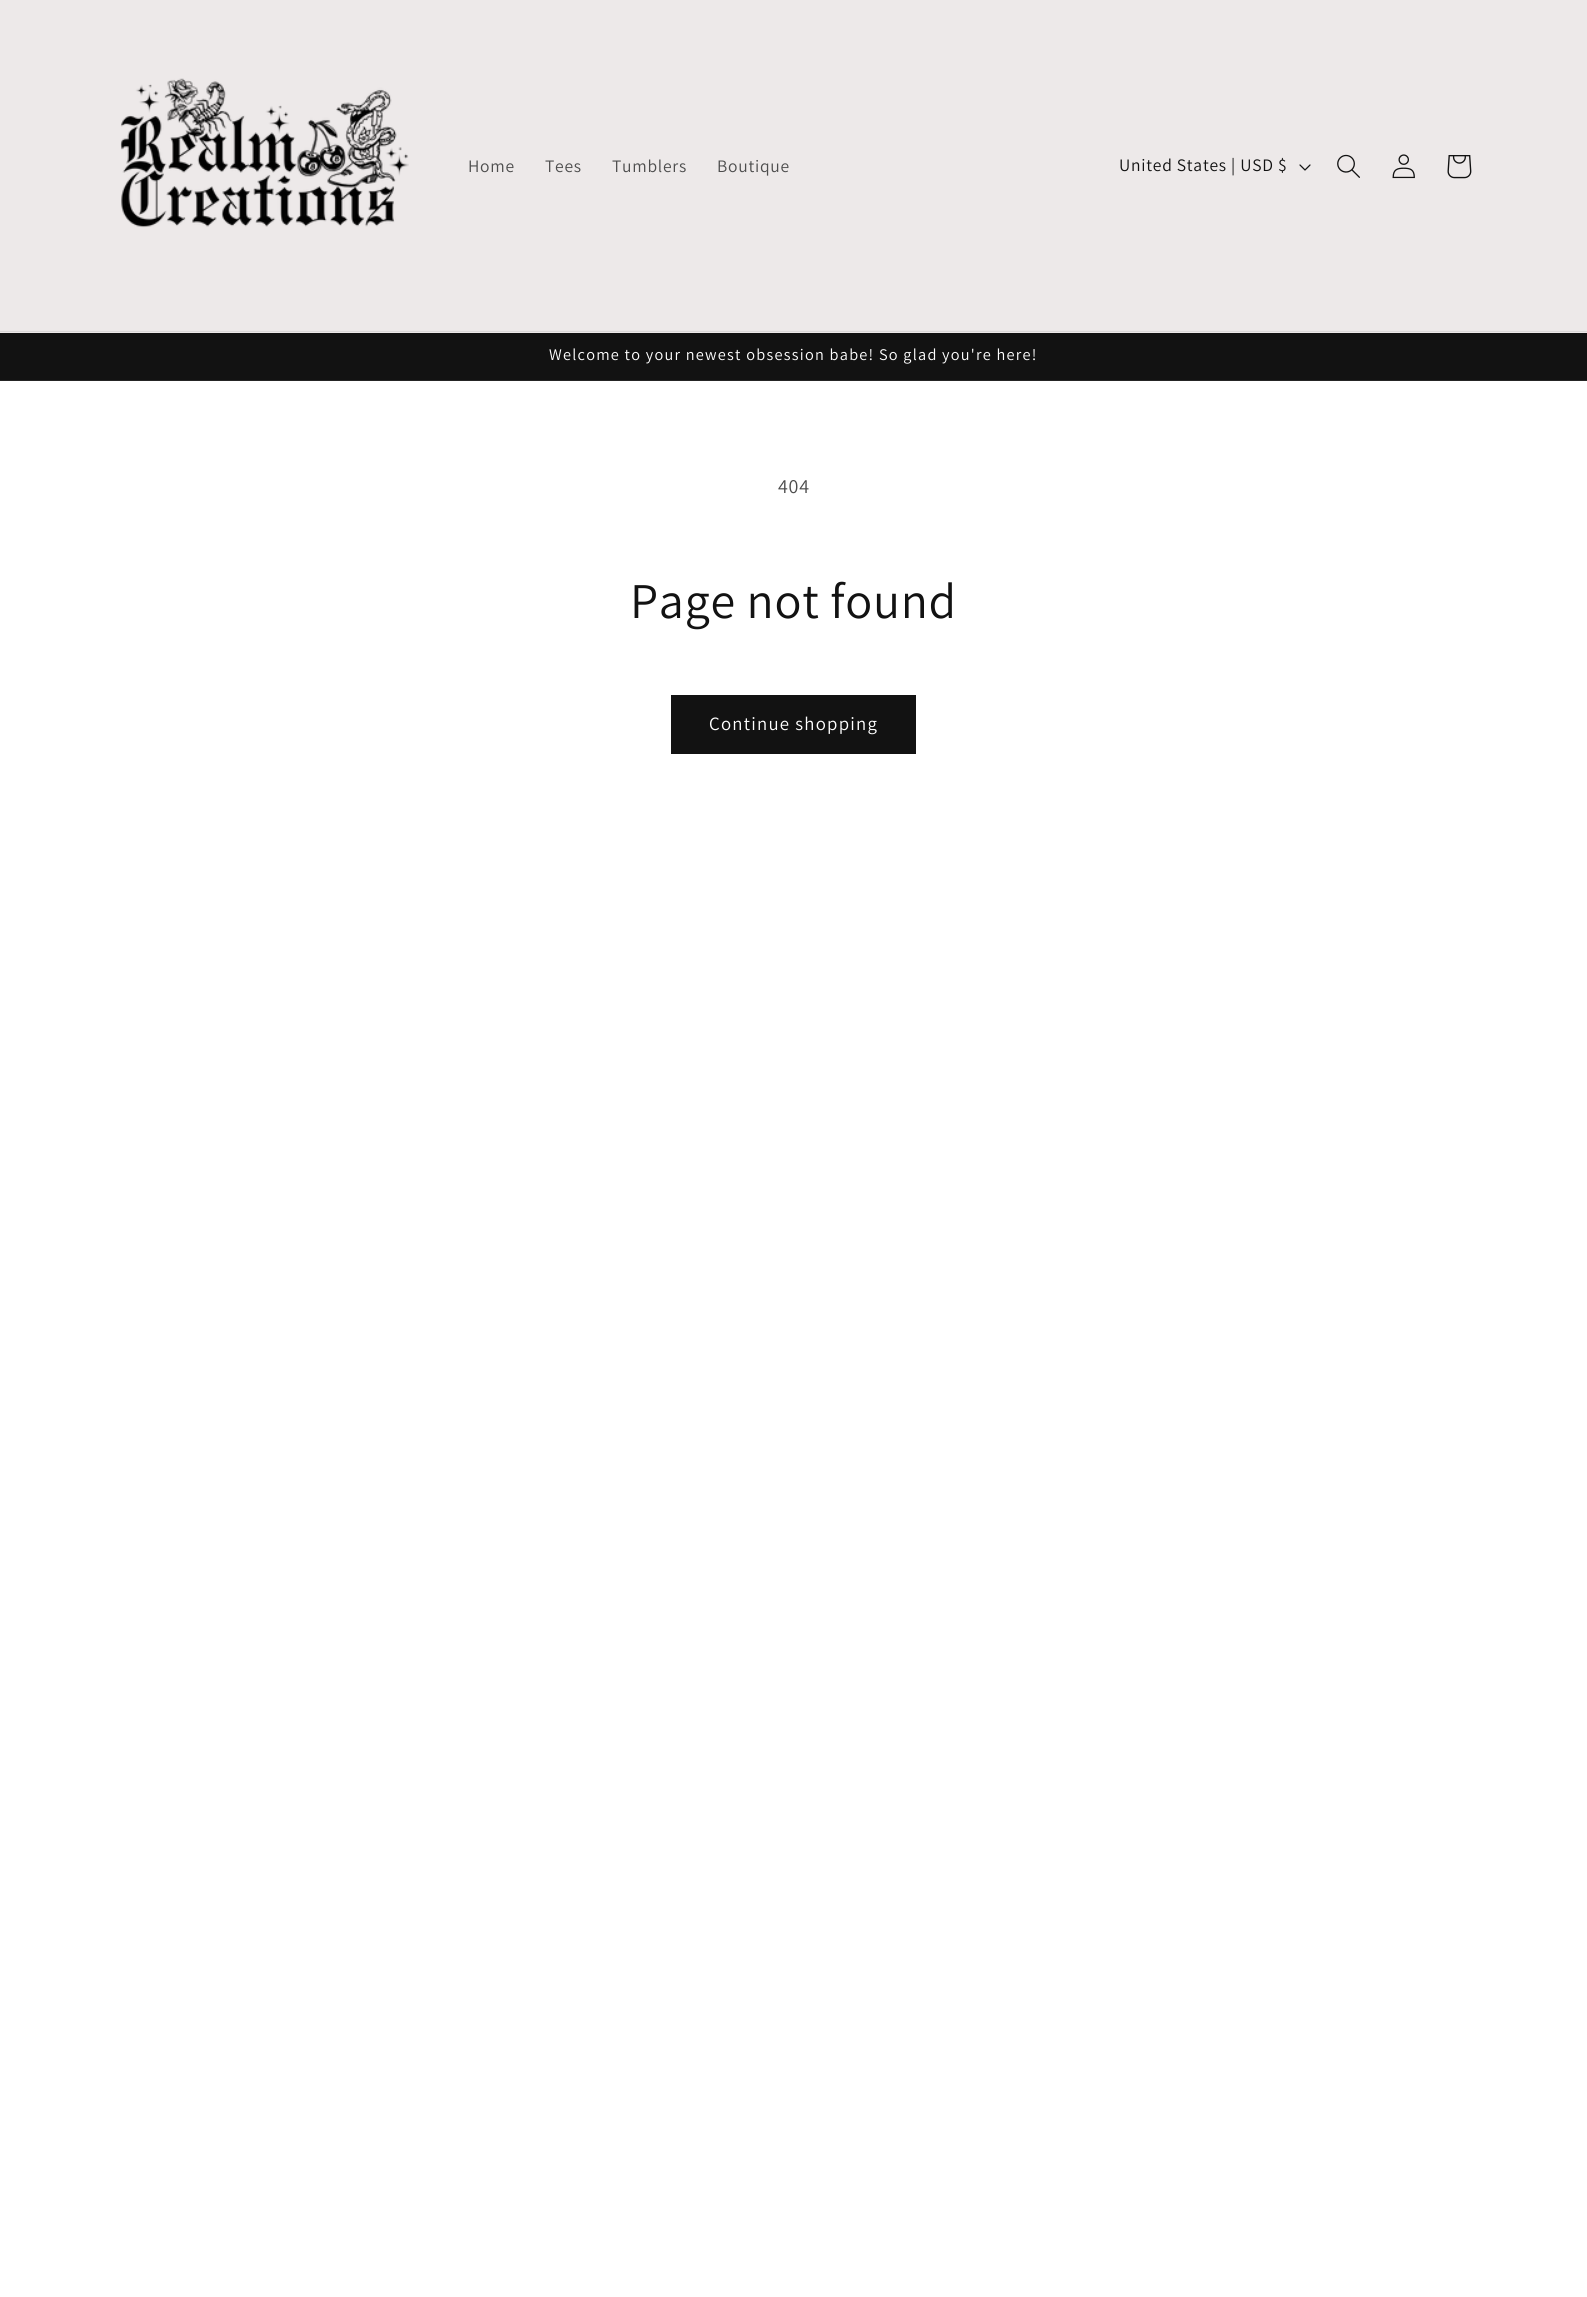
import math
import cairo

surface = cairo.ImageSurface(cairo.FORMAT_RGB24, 1587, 2297)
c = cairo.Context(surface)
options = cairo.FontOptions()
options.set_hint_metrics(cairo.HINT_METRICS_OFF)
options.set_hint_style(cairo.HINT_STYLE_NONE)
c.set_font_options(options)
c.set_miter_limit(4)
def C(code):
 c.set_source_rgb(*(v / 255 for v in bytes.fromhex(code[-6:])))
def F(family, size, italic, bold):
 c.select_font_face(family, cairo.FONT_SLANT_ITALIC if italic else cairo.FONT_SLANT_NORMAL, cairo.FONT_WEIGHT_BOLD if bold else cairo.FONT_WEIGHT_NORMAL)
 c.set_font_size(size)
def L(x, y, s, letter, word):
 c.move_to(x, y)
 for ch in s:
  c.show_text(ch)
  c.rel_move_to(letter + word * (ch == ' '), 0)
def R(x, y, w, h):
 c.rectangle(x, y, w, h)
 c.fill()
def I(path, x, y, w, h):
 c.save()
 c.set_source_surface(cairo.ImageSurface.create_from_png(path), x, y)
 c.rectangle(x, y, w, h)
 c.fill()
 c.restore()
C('ffffff')
c.paint()
C('ede9e9')
R(0,0,1587,333)
C('dbd8d8')
R(0,331,1587,1)
I('1.png',120,78,289,150)
F('Assistant',17.5,0,0)
C('4d4d4d')
L(468,172,'Home',.75,0)
L(545,172,'Tees',.75,0)
L(612,172,'Tumblers',.75,0)
L(717,172,'Boutique',.75,0)
C('121212')
L(1119,171,'United States | USD $',.75,0)
I('2.png',1299,164,12,7)
I('3.png',1337,154,23,24)
I('4.png',1392,154,23,25)
I('5.png',1447,155,25,24)
R(0,333,1587,47)
C('252525')
R(0,380,1587,1)
F('Assistant',16.25,0,0)
C('ffffff')
L(549,360,'Welcome to your newest obsession babe! So glad you\'re here!',1.25,0)
F('Assistant',20,0,0)
C('4d4d4d')
L(778,493,'404',.75,0)
F('Assistant',50,0,0)
C('121212')
L(630,618,'Page not found',.75,0)
R(671,695,245,59)
F('Assistant',18.75,0,0)
C('ffffff')
L(709,730,'Continue shopping',1.25,0)
surface.write_to_png('o.png')
